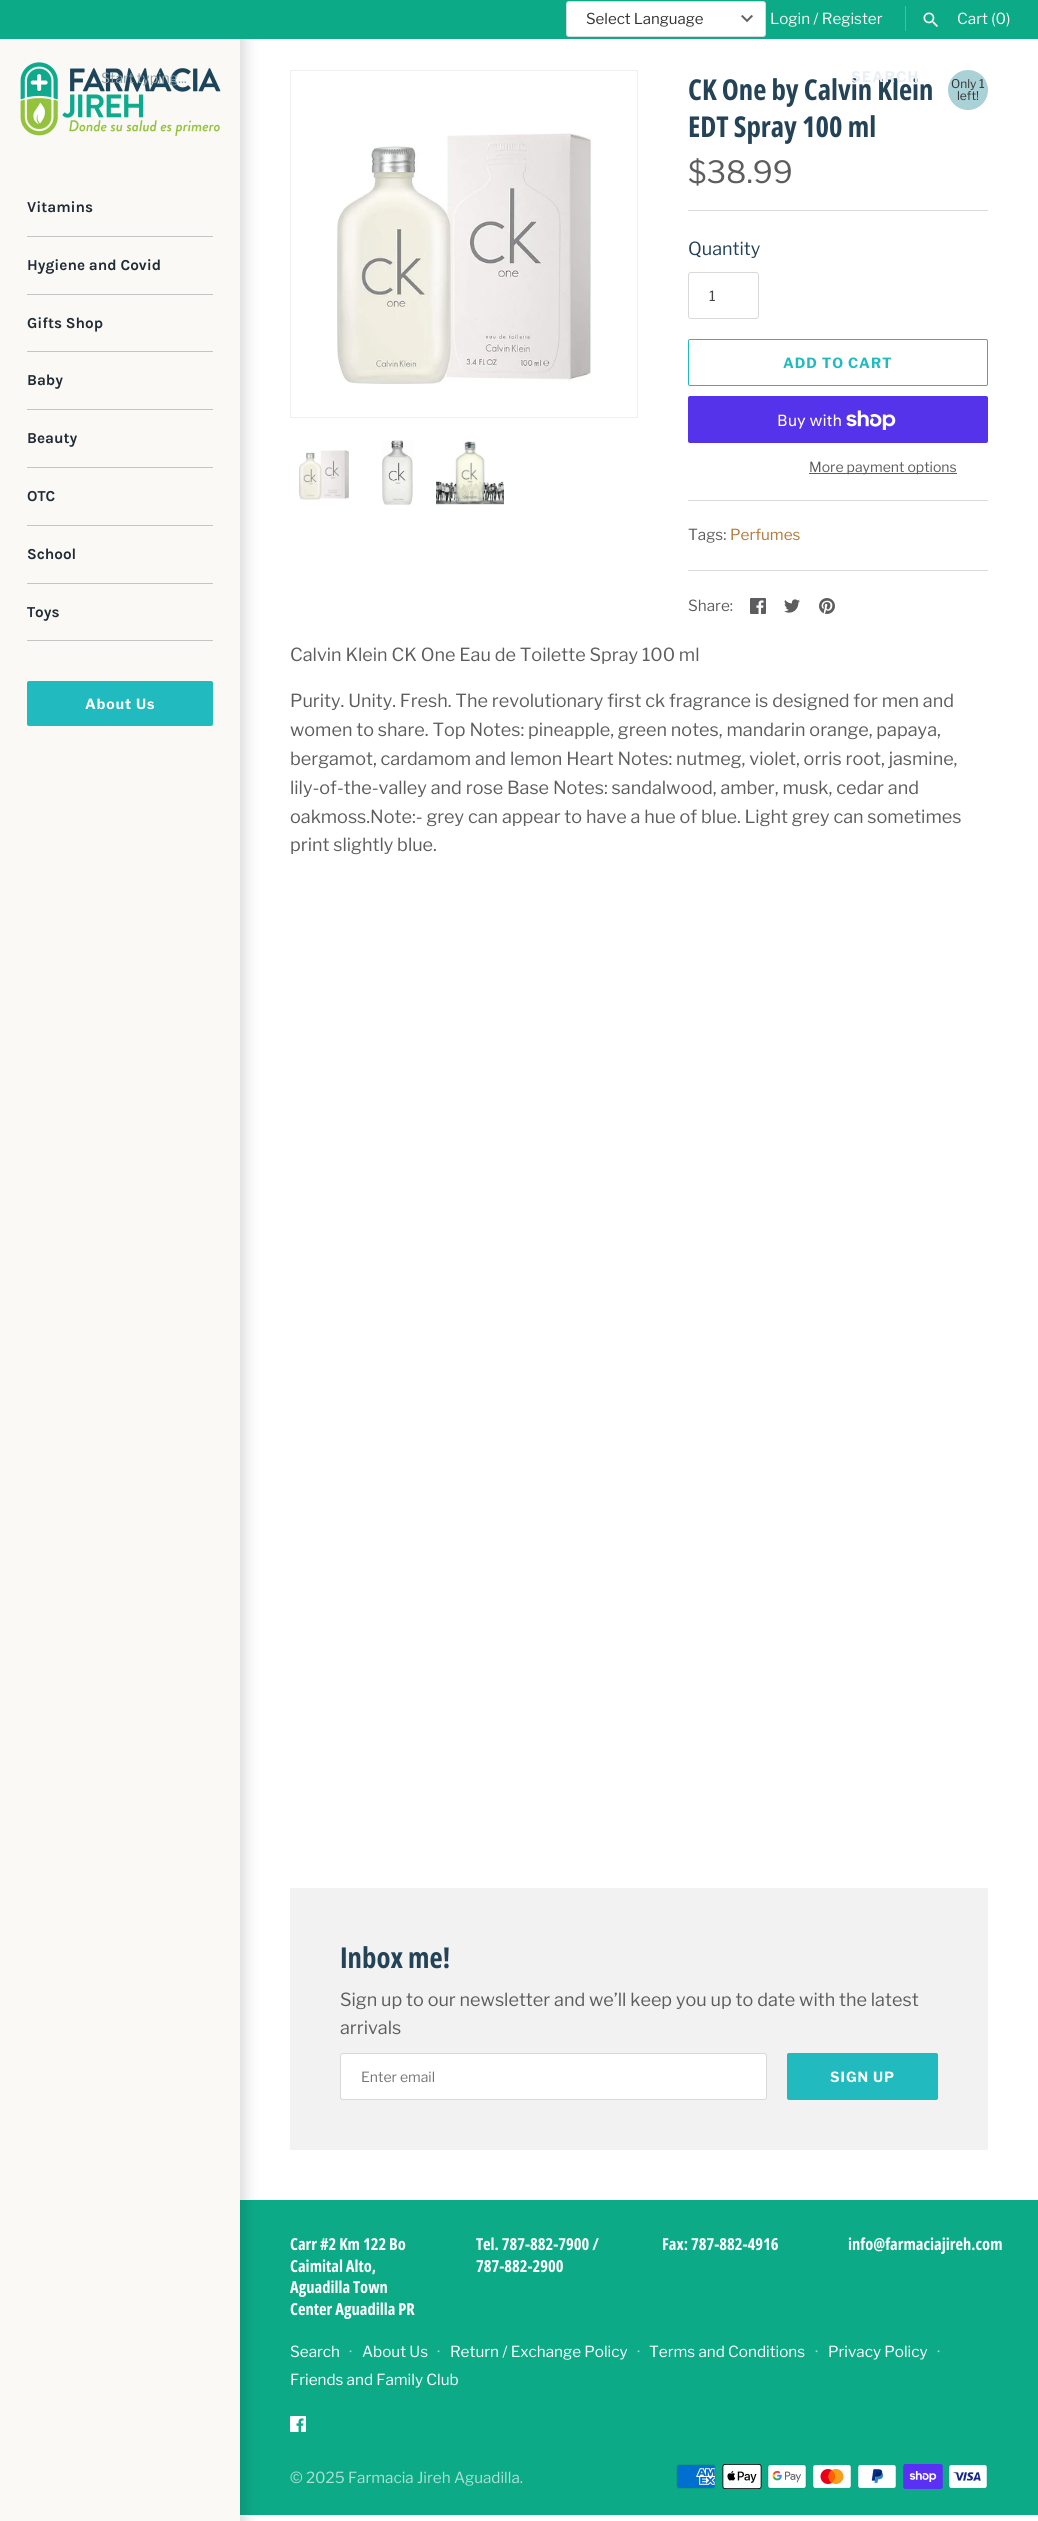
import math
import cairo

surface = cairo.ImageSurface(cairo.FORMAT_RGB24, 1038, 2521)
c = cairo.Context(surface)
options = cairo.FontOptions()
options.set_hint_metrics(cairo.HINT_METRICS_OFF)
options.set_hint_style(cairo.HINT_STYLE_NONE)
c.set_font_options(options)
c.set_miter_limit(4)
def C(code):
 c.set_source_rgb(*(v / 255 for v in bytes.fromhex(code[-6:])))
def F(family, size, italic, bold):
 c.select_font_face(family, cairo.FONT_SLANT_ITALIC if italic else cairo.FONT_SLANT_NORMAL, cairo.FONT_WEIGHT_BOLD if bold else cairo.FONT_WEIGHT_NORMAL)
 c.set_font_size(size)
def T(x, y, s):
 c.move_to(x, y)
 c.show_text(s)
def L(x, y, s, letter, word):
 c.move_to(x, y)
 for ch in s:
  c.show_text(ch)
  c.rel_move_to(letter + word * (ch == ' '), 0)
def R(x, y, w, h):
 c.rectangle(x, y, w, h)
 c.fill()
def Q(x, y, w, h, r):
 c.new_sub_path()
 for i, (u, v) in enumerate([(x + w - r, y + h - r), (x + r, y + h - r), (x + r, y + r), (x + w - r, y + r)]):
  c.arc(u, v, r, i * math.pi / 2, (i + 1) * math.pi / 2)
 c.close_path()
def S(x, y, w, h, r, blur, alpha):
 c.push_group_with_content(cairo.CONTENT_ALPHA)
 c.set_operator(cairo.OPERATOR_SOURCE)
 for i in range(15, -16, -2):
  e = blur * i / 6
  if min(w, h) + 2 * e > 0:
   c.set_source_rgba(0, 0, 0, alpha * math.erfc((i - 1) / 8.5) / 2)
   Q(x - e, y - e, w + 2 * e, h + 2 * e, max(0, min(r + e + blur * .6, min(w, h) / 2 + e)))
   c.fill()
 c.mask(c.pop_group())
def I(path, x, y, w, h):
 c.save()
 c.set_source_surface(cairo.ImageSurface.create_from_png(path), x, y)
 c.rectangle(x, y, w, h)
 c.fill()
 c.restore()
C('ffffff')
c.paint()
C('0daa88')
R(240,2200,798,315)
C('000000')
S(-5,34,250,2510,0,7.5,.15)
C('0daa88')
R(0,0,1038,39)
C('ffffff')
Q(566,1,200,36,3)
c.fill()
I('1.png',741,15,12,8)
Q(566.5,1.5,199,35,2.5)
c.set_source_rgba(0,0,0,0.15)
c.set_line_width(1)
c.stroke()
F('Libre Franklin',15,0,0)
C('333333')
T(586,24,'Select Language')
F('Libre Franklin',15.25,0,0)
C('faf9f5')
T(770,24,'Login / Register')
C('48bea3')
R(905,6,1,25)
I('2.png',923,12,15,15)
C('faf9f5')
T(957,24,'Cart (0)')
R(0,39,240,2482)
I('3.png',20,62,201,74)
F('Libre Franklin',14,0,0)
C('8fa1aa')
T(101,83,'Start typing...')
F('Open Sans Condensed',28.75,0,1)
C('244357')
T(688,100,'CK One by Calvin Klein')
F('Libre Franklin',14.5,0,1)
C('eceff1')
L(851,82,'SEARCH',1,0)
C('c4c6c5')
R(27,236,186,1)
F('Karla',15.25,0,1)
C('212b36')
T(27,212,'Vitamins')
C('c4c6c5')
R(27,294,186,1)
C('212b36')
T(27,270,'Hygiene and Covid')
C('c4c6c5')
R(27,351,186,1)
C('212b36')
T(27,328,'Gifts Shop')
C('c4c6c5')
R(27,409,186,1)
C('212b36')
T(27,385,'Baby')
C('c4c6c5')
R(27,467,186,1)
C('212b36')
T(27,443,'Beauty')
C('c4c6c5')
R(27,525,186,1)
C('212b36')
T(27,501,'OTC')
C('c4c6c5')
R(27,583,186,1)
C('212b36')
T(27,559,'School')
C('c4c6c5')
R(27,640,186,1)
C('212b36')
T(27,617,'Toys')
C('21babe')
Q(27,681,186,45,2)
c.fill()
F('Libre Franklin',14,0,1)
C('ffffff')
L(85,709,'About Us',1,0)
c.rectangle(290.5,70.5,347,347)
C('f1f0ef')
c.stroke()
I('4.png',337,133,255,251)
I('5.png',299,450,50,50)
I('6.png',382,440,31,65)
I('7.png',436,441,68,64)
F('Open Sans Condensed',28.75,0,1)
C('244357')
T(688,137,'EDT Spray 100 ml')
C('a9d1d6')
c.new_path()
c.arc(968,90,20,0,2 * math.pi)
c.fill()
F('Libre Franklin',12,0,0)
C('333333')
T(951,88,'Only 1')
T(957,100,'left!')
F('Libre Franklin',30.5,0,0)
C('5d5d60')
T(688,183,'$38.99')
C('dbdad7')
R(688,210,300,1)
F('Libre Franklin',18,0,0)
C('244357')
T(688,255,'Quantity')
Q(688.5,272.5,70,46,2.5)
C('d9d9d9')
c.stroke()
F('Libre Franklin',14,0,0)
C('444444')
T(709,301,'1')
Q(688.5,339.5,299,46,1.5)
C('21babe')
c.stroke()
F('Libre Franklin',14,0,1)
L(783,368,'ADD TO CART',1,0)
C('5433eb')
Q(688,396,300,47,2)
c.fill()
F('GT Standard',16,0,0)
C('ffffff')
T(777,426,'Buy with')
I('8.png',846,410,50,20)
C('5d5d60')
R(809,473,148,1)
F('Libre Franklin',14,0,0)
T(809,472,'More payment options')
C('dbdad7')
R(688,500,300,1)
F('Libre Franklin',15.25,0,0)
C('5d5d60')
T(688,540,'Tags:')
C('b3793b')
T(730,540,'Perfumes')
C('dbdad7')
R(688,570,300,1)
C('5d5d60')
T(688,611,'Share:')
I('9.png',750,598,16,16)
I('10.png',784,599,16,14)
I('11.png',819,598,16,16)
F('Libre Franklin',18,0,0)
T(290,661,'Calvin Klein CK One Eau de Toilette Spray 100 ml')
T(290,707,'Purity. Unity. Fresh. The revolutionary first ck fragrance is designed for men and')
T(290,736,'women to share. Top Notes: pineapple, green notes, mandarin orange, papaya,')
T(290,765,'bergamot, cardamom and lemon Heart Notes: nutmeg, violet, orris root, jasmine,')
T(290,794,'lily-of-the-valley and rose Base Notes: sandalwood, amber, musk, cedar and')
T(290,823,'oakmoss.Note:- grey can appear to have a hue of blue. Light grey can sometimes')
T(290,851,'print slightly blue.')
C('f2f2f2')
R(290,1888,698,262)
F('Open Sans Condensed',28.75,0,1)
C('244357')
T(340,1968,'Inbox me!')
F('Libre Franklin',18,0,0)
C('5d5d60')
T(340,2006,'Sign up to our newsletter and we’ll keep you up to date with the latest')
T(340,2034,'arrivals')
C('ffffff')
Q(340,2053,427,47,3)
c.fill()
Q(340.5,2053.5,426,46,2.5)
c.set_source_rgba(0,0,0,0.15)
c.stroke()
F('Libre Franklin',14,0,0)
C('757575')
T(361,2082,'Enter email')
C('21babe')
Q(787.5,2053.5,150,46,1.5)
c.fill_preserve()
c.stroke()
F('Libre Franklin',14,0,1)
C('ffffff')
L(830,2082,'SIGN UP',1,0)
F('Open Sans Condensed',16.5,0,1)
T(290,2250,'Carr #2 Km 122 Bo')
T(290,2272,'Caimital Alto,')
T(290,2293,'Aguadilla Town')
T(290,2315,'Center Aguadilla PR')
T(476,2250,'Tel. 787-882-7900 /')
T(476,2272,'787-882-2900')
T(662,2250,'Fax: 787-882-4916')
T(848,2250,'info@farmaciajireh.com')
F('Libre Franklin',15.25,0,0)
T(290,2357,'Search')
C('aae1d5')
T(349,2357,'·')
C('ffffff')
T(362,2357,'About Us')
C('aae1d5')
T(437,2357,'·')
C('ffffff')
T(450,2357,'Return / Exchange Policy')
C('aae1d5')
T(637,2357,'·')
C('ffffff')
T(649,2357,'Terms and Conditions')
C('aae1d5')
T(815,2357,'·')
C('ffffff')
T(828,2357,'Privacy Policy')
C('aae1d5')
T(937,2357,'·')
C('ffffff')
T(290,2385,'Friends and Family Club')
I('12.png',290,2416,16,16)
C('aae1d5')
T(290,2483,'© 2025 Farmacia Jireh Aguadilla.')
I('13.png',676,2464,40,25)
I('14.png',722,2464,40,25)
I('15.png',767,2464,40,25)
I('16.png',812,2464,40,25)
I('17.png',857,2464,40,25)
I('18.png',903,2464,40,25)
I('19.png',948,2464,40,25)
surface.write_to_png('o.png')
